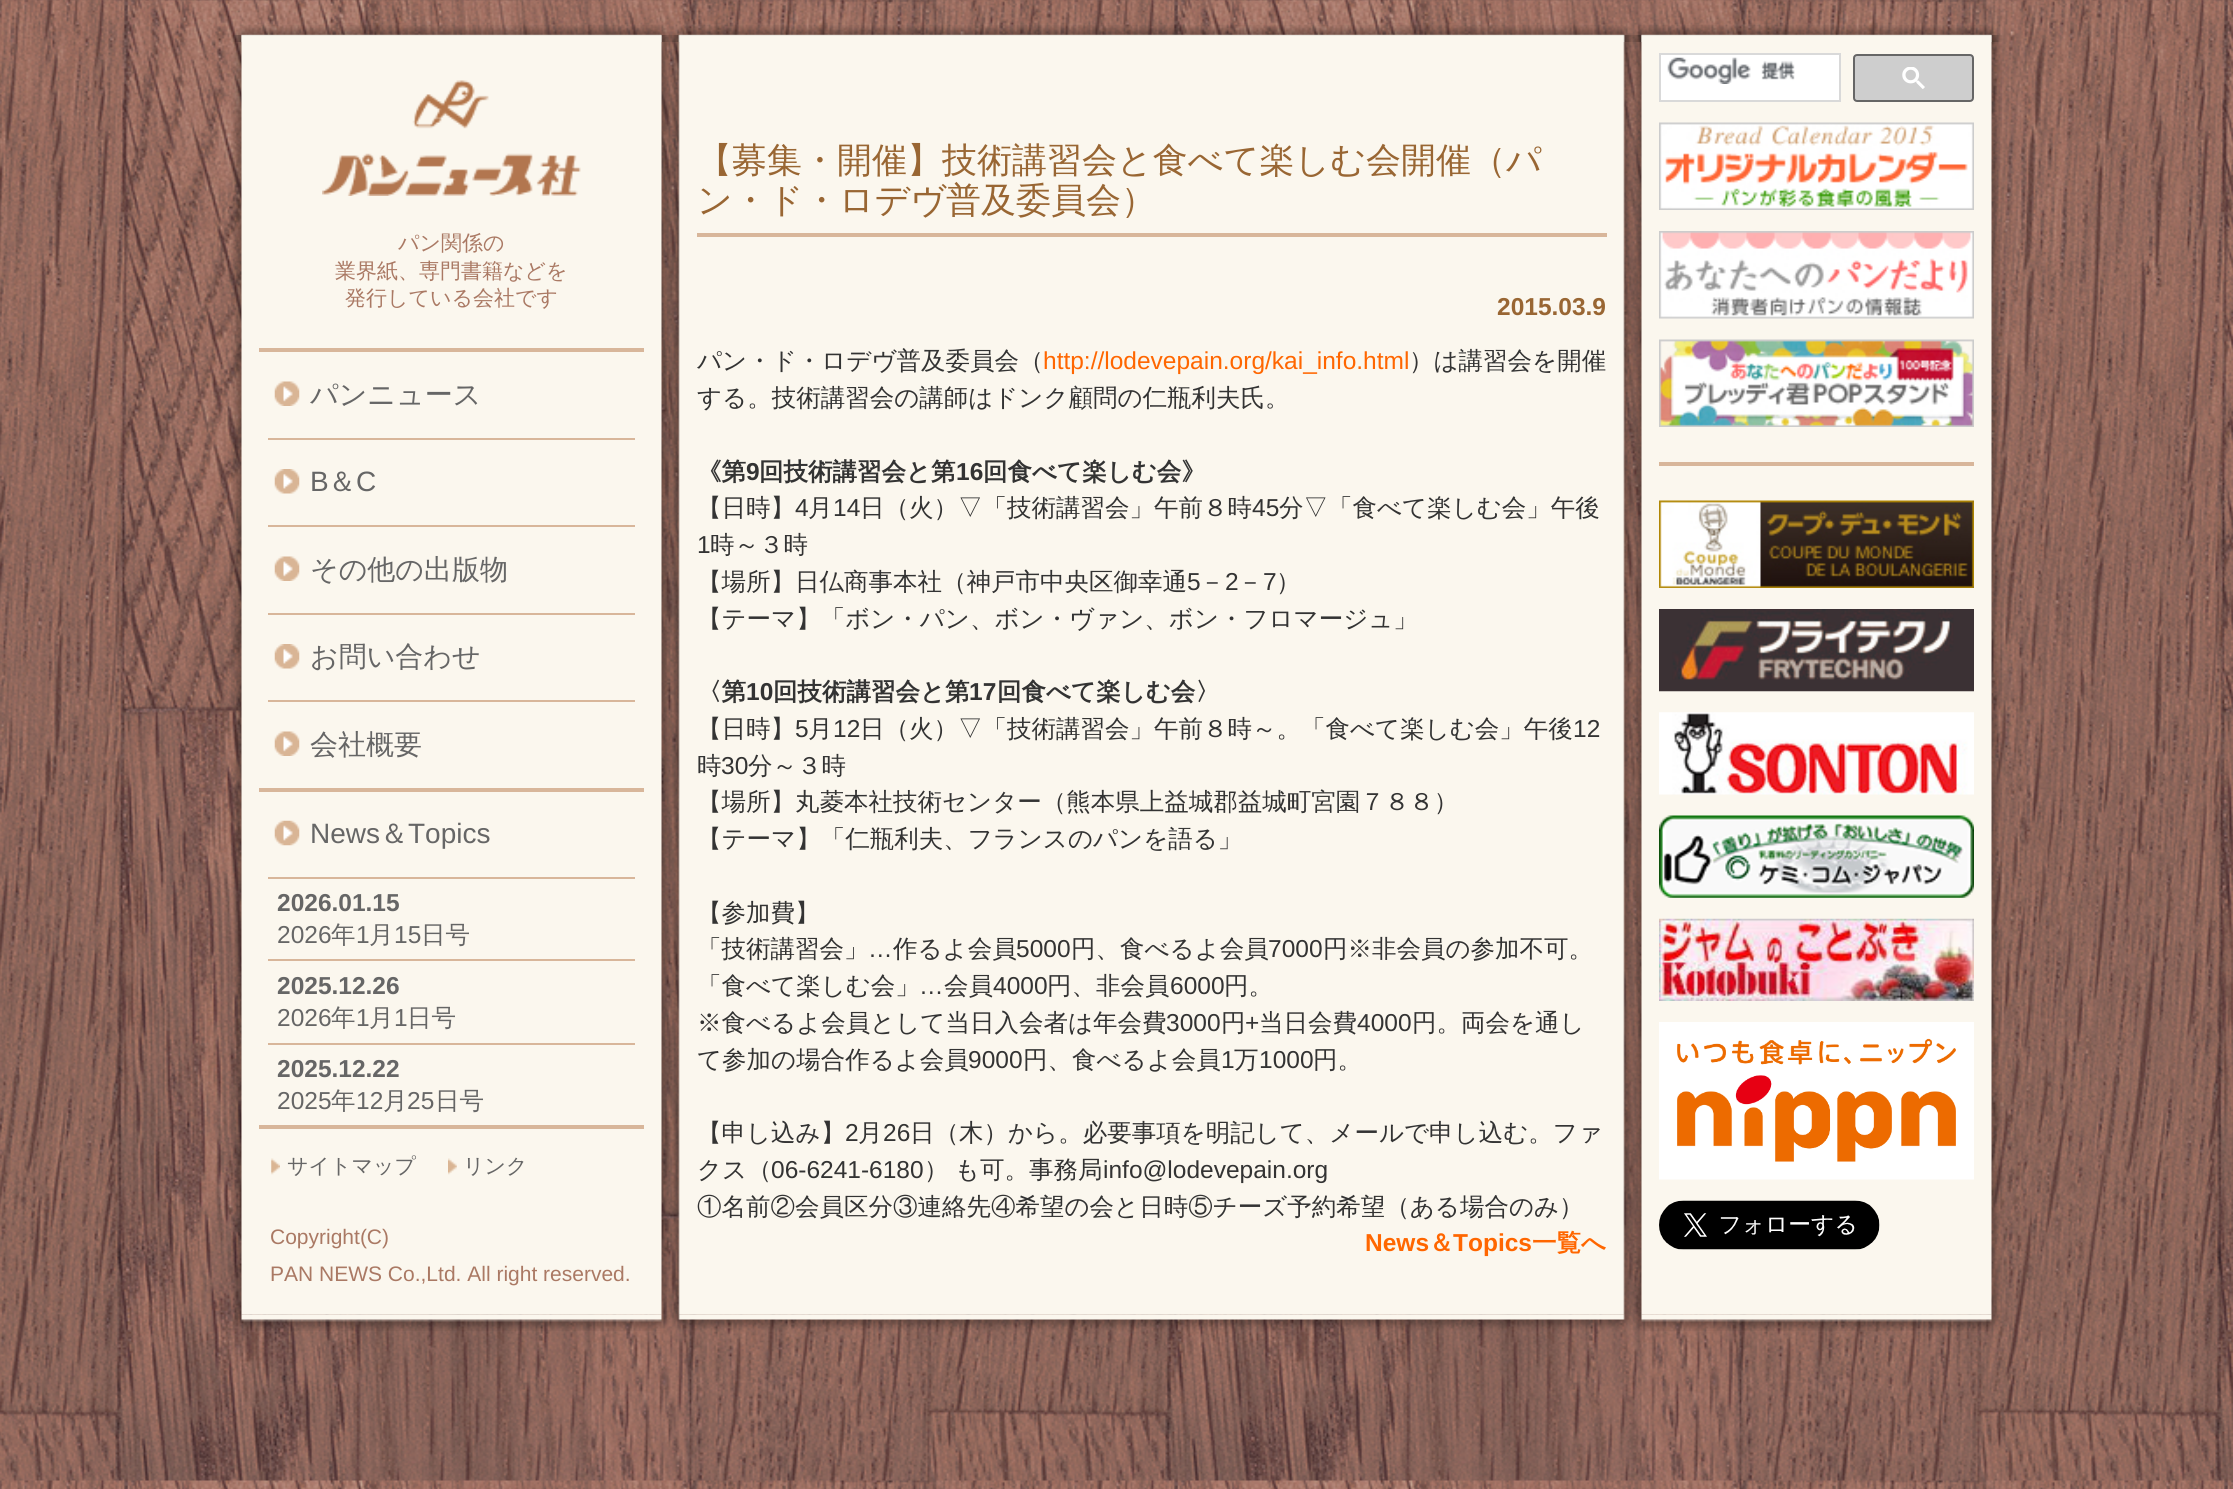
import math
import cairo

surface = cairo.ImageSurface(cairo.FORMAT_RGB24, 2233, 1489)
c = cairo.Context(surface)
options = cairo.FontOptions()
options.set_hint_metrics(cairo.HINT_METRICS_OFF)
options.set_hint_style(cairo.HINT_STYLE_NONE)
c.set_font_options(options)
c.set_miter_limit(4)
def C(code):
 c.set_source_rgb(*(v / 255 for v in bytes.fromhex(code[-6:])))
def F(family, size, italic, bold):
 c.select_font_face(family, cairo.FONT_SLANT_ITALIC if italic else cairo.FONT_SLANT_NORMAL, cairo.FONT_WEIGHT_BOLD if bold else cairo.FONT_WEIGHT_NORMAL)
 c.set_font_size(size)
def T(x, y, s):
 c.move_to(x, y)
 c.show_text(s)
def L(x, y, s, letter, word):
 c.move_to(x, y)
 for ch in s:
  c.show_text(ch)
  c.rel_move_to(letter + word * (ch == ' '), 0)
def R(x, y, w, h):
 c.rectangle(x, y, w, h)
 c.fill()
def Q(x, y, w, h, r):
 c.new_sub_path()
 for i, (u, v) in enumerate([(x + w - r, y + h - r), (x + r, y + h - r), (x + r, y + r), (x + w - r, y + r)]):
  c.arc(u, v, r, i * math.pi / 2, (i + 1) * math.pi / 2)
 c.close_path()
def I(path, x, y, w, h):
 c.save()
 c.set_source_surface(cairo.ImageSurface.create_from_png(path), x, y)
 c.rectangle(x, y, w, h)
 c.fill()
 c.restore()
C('ffffff')
c.paint()
I('1.png',0,0,2233,1489)
I('2.png',231,35,1771,1280)
I('3.png',231,25,1771,17)
I('4.png',322,80,259,116)
F('WenQuanYi Zen Hei Medium',21,0,0)
C('aa7964')
T(398,250,'パン関係の')
T(335,278,'業界紙、専門書籍などを')
T(345,305,'発行している会社です')
C('d8b69a')
R(259,348,385,4)
R(268,438,367,2)
I('5.png',274,381,26,25)
F('WenQuanYi Zen Hei Medium',28,0,0)
C('666666')
T(310,404,'パンニュース')
C('d8b69a')
R(268,525,367,2)
I('6.png',274,469,26,25)
F('Liberation Sans',28,0,0)
C('666666')
T(310,491,'B')
F('WenQuanYi Zen Hei Medium',28,0,0)
T(328,491,'＆')
F('Liberation Sans',28,0,0)
T(356,491,'C')
C('d8b69a')
R(268,613,367,2)
I('5.png',274,556,26,25)
F('WenQuanYi Zen Hei Medium',28,0,0)
C('666666')
T(310,579,'その他の出版物')
C('d8b69a')
R(268,700,367,2)
I('6.png',274,644,26,25)
C('666666')
T(310,666,'お問い合わせ')
I('5.png',274,731,26,25)
T(310,754,'会社概要')
C('d8b69a')
R(259,788,385,4)
R(259,1125,385,4)
I('7.png',274,820,26,26)
F('Liberation Sans',28,0,0)
C('666666')
T(310,843,'News')
F('WenQuanYi Zen Hei Medium',28,0,0)
T(380,843,'＆')
F('Liberation Sans',28,0,0)
T(408,843,'Topics')
C('d8b69a')
R(268,877,367,2)
F('Liberation Sans',24.5,0,1)
C('666666')
T(277,911,'2026.01.15')
F('Liberation Sans',24.5,0,0)
T(277,943,'2026')
F('WenQuanYi Zen Hei Medium',24.5,0,0)
T(331,943,'年')
F('Liberation Sans',24.5,0,0)
T(356,943,'1')
F('WenQuanYi Zen Hei Medium',24.5,0,0)
T(369,943,'月')
F('Liberation Sans',24.5,0,0)
T(394,943,'15')
F('WenQuanYi Zen Hei Medium',24.5,0,0)
T(421,943,'日号')
C('d8b69a')
R(268,959,367,2)
F('Liberation Sans',24.5,0,1)
C('666666')
T(277,994,'2025.12.26')
F('Liberation Sans',24.5,0,0)
T(277,1026,'2026')
F('WenQuanYi Zen Hei Medium',24.5,0,0)
T(331,1026,'年')
F('Liberation Sans',24.5,0,0)
T(356,1026,'1')
F('WenQuanYi Zen Hei Medium',24.5,0,0)
T(369,1026,'月')
F('Liberation Sans',24.5,0,0)
T(394,1026,'1')
F('WenQuanYi Zen Hei Medium',24.5,0,0)
T(407,1026,'日号')
C('d8b69a')
R(268,1043,367,2)
F('Liberation Sans',24.5,0,1)
C('666666')
T(277,1077,'2025.12.22')
F('Liberation Sans',24.5,0,0)
T(277,1109,'2025')
F('WenQuanYi Zen Hei Medium',24.5,0,0)
T(331,1109,'年')
F('Liberation Sans',24.5,0,0)
T(356,1109,'12')
F('WenQuanYi Zen Hei Medium',24.5,0,0)
T(383,1109,'月')
F('Liberation Sans',24.5,0,0)
T(407,1109,'25')
F('WenQuanYi Zen Hei Medium',24.5,0,0)
T(435,1109,'日号')
I('8.png',271,1158,9,17)
F('WenQuanYi Zen Hei Medium',21,0,0)
T(287,1173,'サイトマップ')
I('9.png',448,1158,9,17)
T(463,1173,'リンク')
F('Liberation Sans',21,0,0)
C('aa7964')
T(270,1244,'Copyright(C)')
T(270,1281,'PAN NEWS Co.,Ltd. All right reserved.')
C('d8b69a')
R(697,233,910,4)
F('WenQuanYi Zen Hei Medium',35,0,0)
C('996633')
T(697,172,'【募集・開催】技術講習会と食べて楽しむ会開催（パ')
T(697,212,'ン・ド・ロデヴ普及委員会）')
F('Liberation Sans',24.5,0,1)
T(1497,315,'2015.03.9')
F('WenQuanYi Zen Hei Medium',24.5,0,0)
C('333333')
T(697,369,'パン・ド・ロデヴ普及委員会（')
F('Liberation Sans',24.5,0,0)
C('ff6600')
T(1043,369,'http://lodevepain.org/kai_info.html')
F('WenQuanYi Zen Hei Medium',24.5,0,0)
C('333333')
T(1409,369,'）は講習会を開催')
T(697,406,'する。技術講習会の講師はドンク顧問の仁瓶利夫氏。')
F('WenQuanYi Zen Hei',24.5,0,1)
T(697,480,'《第')
F('Liberation Sans',24.5,0,1)
T(746,480,'9')
F('WenQuanYi Zen Hei',24.5,0,1)
T(759,480,'回技術講習会と第')
F('Liberation Sans',24.5,0,1)
T(956,480,'16')
F('WenQuanYi Zen Hei',24.5,0,1)
T(983,480,'回食べて楽しむ会》')
F('WenQuanYi Zen Hei Medium',24.5,0,0)
T(697,516,'【日時】')
F('Liberation Sans',24.5,0,0)
T(795,516,'4')
F('WenQuanYi Zen Hei Medium',24.5,0,0)
T(808,516,'月')
F('Liberation Sans',24.5,0,0)
T(833,516,'14')
F('WenQuanYi Zen Hei Medium',24.5,0,0)
T(860,516,'日（火）▽「技術講習会」午前８時')
F('Liberation Sans',24.5,0,0)
T(1252,516,'45')
F('WenQuanYi Zen Hei Medium',24.5,0,0)
T(1279,516,'分▽「食べて楽しむ会」午後')
F('Liberation Sans',24.5,0,0)
T(697,553,'1')
F('WenQuanYi Zen Hei Medium',24.5,0,0)
T(710,553,'時～３時')
T(697,590,'【場所】日仏商事本社（神戸市中央区御幸通')
F('Liberation Sans',24.5,0,0)
T(1187,590,'5')
F('WenQuanYi Zen Hei Medium',24.5,0,0)
T(1200,590,'－')
F('Liberation Sans',24.5,0,0)
T(1225,590,'2')
F('WenQuanYi Zen Hei Medium',24.5,0,0)
T(1238,590,'－')
F('Liberation Sans',24.5,0,0)
T(1263,590,'7')
F('WenQuanYi Zen Hei Medium',24.5,0,0)
T(1276,590,'）')
T(697,627,'【テーマ】「ボン・パン、ボン・ヴァン、ボン・フロマージュ」')
F('WenQuanYi Zen Hei',24.5,0,1)
T(697,700,'〈第')
F('Liberation Sans',24.5,0,1)
T(746,700,'10')
F('WenQuanYi Zen Hei',24.5,0,1)
T(773,700,'回技術講習会と第')
F('Liberation Sans',24.5,0,1)
T(969,700,'17')
F('WenQuanYi Zen Hei',24.5,0,1)
T(997,700,'回食べて楽しむ会〉')
F('WenQuanYi Zen Hei Medium',24.5,0,0)
T(697,737,'【日時】')
F('Liberation Sans',24.5,0,0)
T(795,737,'5')
F('WenQuanYi Zen Hei Medium',24.5,0,0)
T(808,737,'月')
F('Liberation Sans',24.5,0,0)
T(833,737,'12')
F('WenQuanYi Zen Hei Medium',24.5,0,0)
T(860,737,'日（火）▽「技術講習会」午前８時～。「食べて楽しむ会」午後')
F('Liberation Sans',24.5,0,0)
T(1573,737,'12')
F('WenQuanYi Zen Hei Medium',24.5,0,0)
T(697,774,'時')
F('Liberation Sans',24.5,0,0)
T(721,774,'30')
F('WenQuanYi Zen Hei Medium',24.5,0,0)
T(748,774,'分～３時')
T(697,810,'【場所】丸菱本社技術センター（熊本県上益城郡益城町宮園７８８）')
T(697,847,'【テーマ】「仁瓶利夫、フランスのパンを語る」')
T(697,921,'【参加費】')
T(697,957,'「技術講習会」')
F('Liberation Sans',24.5,0,0)
T(868,957,'…')
F('WenQuanYi Zen Hei Medium',24.5,0,0)
T(893,957,'作るよ会員')
F('Liberation Sans',24.5,0,0)
T(1016,957,'5000')
F('WenQuanYi Zen Hei Medium',24.5,0,0)
T(1071,957,'円、食べるよ会員')
F('Liberation Sans',24.5,0,0)
T(1268,957,'7000')
F('WenQuanYi Zen Hei Medium',24.5,0,0)
T(1323,957,'円※非会員の参加不可。')
T(697,994,'「食べて楽しむ会」')
F('Liberation Sans',24.5,0,0)
T(919,994,'…')
F('WenQuanYi Zen Hei Medium',24.5,0,0)
T(944,994,'会員')
F('Liberation Sans',24.5,0,0)
T(993,994,'4000')
F('WenQuanYi Zen Hei Medium',24.5,0,0)
T(1047,994,'円、非会員')
F('Liberation Sans',24.5,0,0)
T(1170,994,'6000')
F('WenQuanYi Zen Hei Medium',24.5,0,0)
T(1224,994,'円。')
T(697,1031,'※食べるよ会員として当日入会者は年会費')
F('Liberation Sans',24.5,0,0)
T(1166,1031,'3000')
F('WenQuanYi Zen Hei Medium',24.5,0,0)
T(1221,1031,'円')
F('Liberation Sans',24.5,0,0)
T(1245,1031,'+')
F('WenQuanYi Zen Hei Medium',24.5,0,0)
T(1259,1031,'当日会費')
F('Liberation Sans',24.5,0,0)
T(1357,1031,'4000')
F('WenQuanYi Zen Hei Medium',24.5,0,0)
T(1412,1031,'円。両会を通し')
T(697,1068,'て参加の場合作るよ会員')
F('Liberation Sans',24.5,0,0)
T(968,1068,'9000')
F('WenQuanYi Zen Hei Medium',24.5,0,0)
T(1023,1068,'円、食べるよ会員')
F('Liberation Sans',24.5,0,0)
T(1221,1068,'1')
F('WenQuanYi Zen Hei Medium',24.5,0,0)
T(1234,1068,'万')
F('Liberation Sans',24.5,0,0)
T(1259,1068,'1000')
F('WenQuanYi Zen Hei Medium',24.5,0,0)
T(1313,1068,'円。')
T(697,1141,'【申し込み】')
F('Liberation Sans',24.5,0,0)
T(845,1141,'2')
F('WenQuanYi Zen Hei Medium',24.5,0,0)
T(858,1141,'月')
F('Liberation Sans',24.5,0,0)
T(883,1141,'26')
F('WenQuanYi Zen Hei Medium',24.5,0,0)
T(910,1141,'日（木）から。必要事項を明記して、メールで申し込む。ファ')
T(697,1178,'クス（')
F('Liberation Sans',24.5,0,0)
T(771,1178,'06-6241-6180')
F('WenQuanYi Zen Hei Medium',24.5,0,0)
L(924,1178,'） も可。事務局',0,-1)
F('Liberation Sans',24.5,0,0)
T(1103,1178,'info@lodevepain.org')
F('WenQuanYi Zen Hei Medium',24.5,0,0)
T(697,1215,'①名前②会員区分③連絡先④希望の会と日時⑤チーズ予約希望（ある場合のみ）')
F('Liberation Sans',24.5,0,1)
C('ff6600')
T(1365,1251,'News')
F('WenQuanYi Zen Hei',24.5,0,1)
T(1429,1251,'＆')
F('Liberation Sans',24.5,0,1)
T(1453,1251,'Topics')
F('WenQuanYi Zen Hei',24.5,0,1)
T(1532,1251,'一覧へ')
C('ffffff')
c.rectangle(1660,54,180,47)
c.fill_preserve()
C('d9d9d9')
c.stroke()
I('10.png',1667,57,128,27)
C('cecece')
Q(1854,55,119,46,3)
c.fill_preserve()
C('666666')
c.stroke()
I('11.png',1902,67,23,22)
I('12.png',1659,122,315,88)
I('13.png',1659,231,315,88)
I('14.png',1659,339,315,88)
C('d8b69a')
R(1659,462,315,4)
I('15.png',1659,500,315,88)
I('16.png',1659,609,315,83)
I('17.png',1659,712,315,83)
I('18.png',1659,815,315,83)
I('19.png',1659,918,315,83)
I('20.png',1659,1022,315,158)
I('21.png',1659,1200,221,50)
I('22.png',232,1314,1770,17)
surface.write_to_png('o.png')
